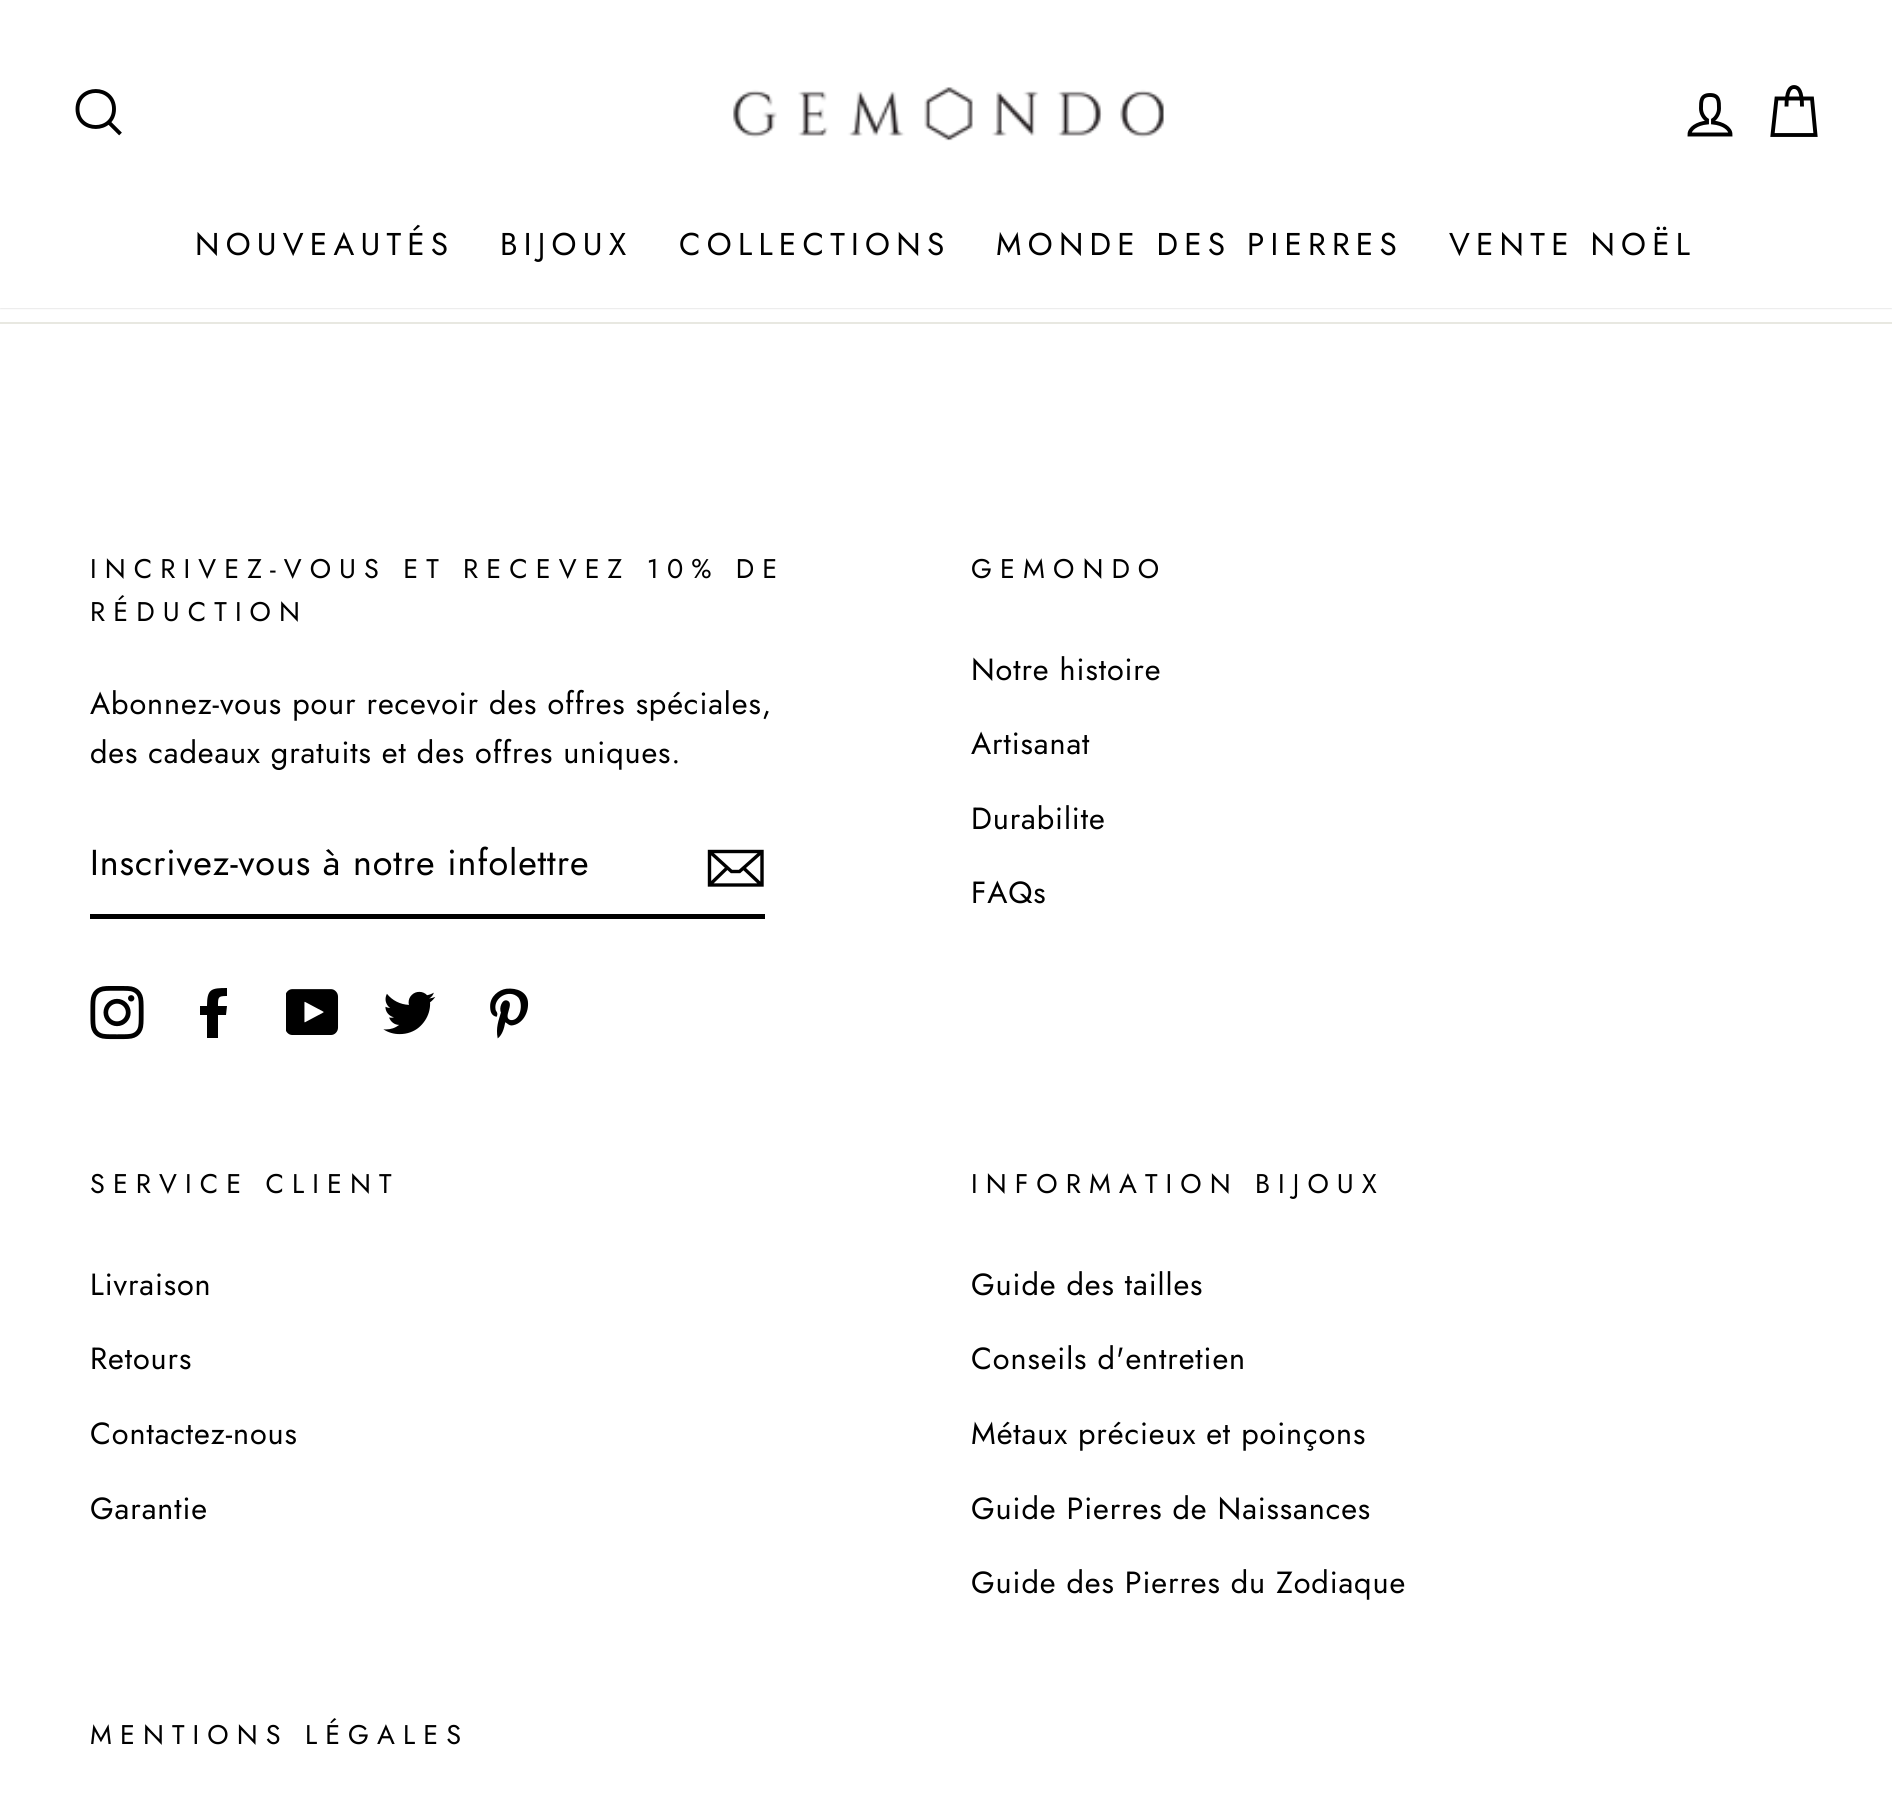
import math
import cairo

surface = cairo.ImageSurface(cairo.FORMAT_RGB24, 1892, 1810)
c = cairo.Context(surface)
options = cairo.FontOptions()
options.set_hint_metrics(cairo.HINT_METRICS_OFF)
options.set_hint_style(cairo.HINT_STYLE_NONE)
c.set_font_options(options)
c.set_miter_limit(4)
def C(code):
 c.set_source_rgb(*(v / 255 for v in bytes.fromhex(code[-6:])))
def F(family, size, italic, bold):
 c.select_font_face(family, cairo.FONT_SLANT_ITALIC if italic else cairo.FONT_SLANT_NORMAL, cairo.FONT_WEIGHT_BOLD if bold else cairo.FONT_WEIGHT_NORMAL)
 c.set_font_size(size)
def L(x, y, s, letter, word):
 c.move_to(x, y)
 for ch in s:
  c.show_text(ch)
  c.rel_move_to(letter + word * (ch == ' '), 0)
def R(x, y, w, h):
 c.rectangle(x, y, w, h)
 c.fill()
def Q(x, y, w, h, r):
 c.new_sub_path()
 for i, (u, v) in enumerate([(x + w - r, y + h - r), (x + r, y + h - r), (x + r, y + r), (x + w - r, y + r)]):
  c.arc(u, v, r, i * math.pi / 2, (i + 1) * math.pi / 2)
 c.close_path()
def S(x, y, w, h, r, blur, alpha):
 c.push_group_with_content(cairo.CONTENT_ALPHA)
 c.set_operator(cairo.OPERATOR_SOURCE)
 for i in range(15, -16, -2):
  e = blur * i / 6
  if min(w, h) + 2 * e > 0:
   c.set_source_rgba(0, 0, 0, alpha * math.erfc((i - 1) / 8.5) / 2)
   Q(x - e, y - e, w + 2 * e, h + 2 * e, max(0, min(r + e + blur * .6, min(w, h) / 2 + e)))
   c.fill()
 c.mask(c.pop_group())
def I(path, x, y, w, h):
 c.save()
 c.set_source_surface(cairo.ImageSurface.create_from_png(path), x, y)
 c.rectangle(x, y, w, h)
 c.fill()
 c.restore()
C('ffffff')
c.paint()
C('000000')
S(0,0,1892,308,0,1,.2)
C('ffffff')
R(0,0,1892,308)
c.new_path()
c.move_to(114,109)
c.curve_to(114,133,77.5,133,77.5,109)
c.curve_to(77.5,85,114,85,114,109)
c.close_path()
c.move_to(120.5,134)
c.line_to(109,122.5)
C('000000')
c.set_line_width(3.9)
c.stroke()
I('1.png',733,87,431,54)
c.new_path()
c.move_to(1713,122.5)
c.line_to(1713,120)
c.curve_to(1716,118,1719,113.5,1719,108.5)
c.curve_to(1719,101,1719,95,1710,95)
c.curve_to(1701,95,1701,101,1701,108.5)
c.curve_to(1701,113.5,1704,118,1707,120)
c.line_to(1707,122.5)
c.curve_to(1697,123.5,1689.5,128.5,1689.5,134.5)
c.line_to(1730.5,134.5)
c.curve_to(1730.5,128.5,1723,123.5,1713,122.5)
c.close_path()
c.stroke()
c.new_path()
c.move_to(1786.5,106.5)
c.curve_to(1786.5,91,1790,87,1794,87)
c.curve_to(1798.5,87,1802,91,1802,106.5)
c.move_to(1776.5,98.5)
c.line_to(1812,98.5)
c.line_to(1815.5,135)
c.line_to(1772.5,135)
c.close_path()
c.stroke()
F('Jost',31.5,0,0)
L(195,255,'NOUVEAUTÉS',6.25,0)
L(500,255,'BIJOUX',6.25,0)
L(679,255,'COLLECTIONS',6.25,0)
L(996,255,'MONDE DES PIERRES',6.25,0)
L(1449,255,'VENTE NOËL',6.25,0)
C('e8e8e1')
R(0,322,1892,2)
F('Jost',27,0,0)
C('000000')
L(90,578,'INCRIVEZ-VOUS ET RECEVEZ 10% DE',8.1,0)
L(90,621,'RÉDUCTION',8.1,0)
F('Jost',30.6,0,0)
L(90,714,'Abonnez-vous pour recevoir des offres spéciales,',.9,0)
L(90,763,'des cadeaux gratuits et des offres uniques.',.9,0)
R(90,914,675,5)
F('Jost',36,0,0)
L(90,875,'Inscrivez-vous à notre infolettre',.9,0)
c.new_path()
c.move_to(762,885)
c.line_to(709.5,885)
c.line_to(709.5,851.5)
c.line_to(762,851.5)
c.close_path()
c.move_to(709.5,851.5)
c.line_to(731.5,871.5)
c.line_to(739.5,871.5)
c.line_to(762,851.5)
c.move_to(727,868)
c.line_to(710,884.5)
c.move_to(761.5,885)
c.line_to(743.5,868)
c.set_line_width(3.4)
c.stroke()
I('2.png',90,986,54,54)
c.new_path()
c.move_to(218,1038)
c.line_to(218,1015)
c.line_to(226,1015)
c.line_to(227,1006)
c.line_to(218,1006)
c.curve_to(218,997,218,996,227,996)
c.line_to(227,988)
c.curve_to(211,988,207,989,207,1006)
c.line_to(200,1006)
c.line_to(200,1015)
c.line_to(207,1015)
c.line_to(207,1038)
c.close_path()
c.fill()
I('3.png',286,989,53,46)
I('4.png',383,991,53,44)
I('5.png',490,988,39,51)
F('Jost',27,0,0)
L(971,578,'GEMONDO',8.1,0)
F('Jost',30.6,0,0)
L(971,680,'Notre histoire',.9,0)
L(971,754,'Artisanat',.9,0)
L(971,829,'Durabilite',.9,0)
L(971,903,'FAQs',.9,0)
F('Jost',27,0,0)
L(90,1193,'SERVICE CLIENT',8.1,0)
F('Jost',30.6,0,0)
L(90,1295,'Livraison',.9,0)
L(90,1369,'Retours',.9,0)
L(90,1444,'Contactez-nous',.9,0)
L(90,1519,'Garantie',.9,0)
F('Jost',27,0,0)
L(971,1193,'INFORMATION BIJOUX',8.1,0)
F('Jost',30.6,0,0)
L(971,1295,'Guide des tailles',.9,0)
L(971,1369,'Conseils d\'entretien',.9,0)
L(971,1444,'Métaux précieux et poinçons',.9,0)
L(971,1519,'Guide Pierres de Naissances',.9,0)
L(971,1593,'Guide des Pierres du Zodiaque',.9,0)
F('Jost',27,0,0)
L(90,1744,'MENTIONS LÉGALES',8.1,0)
surface.write_to_png('o.png')
